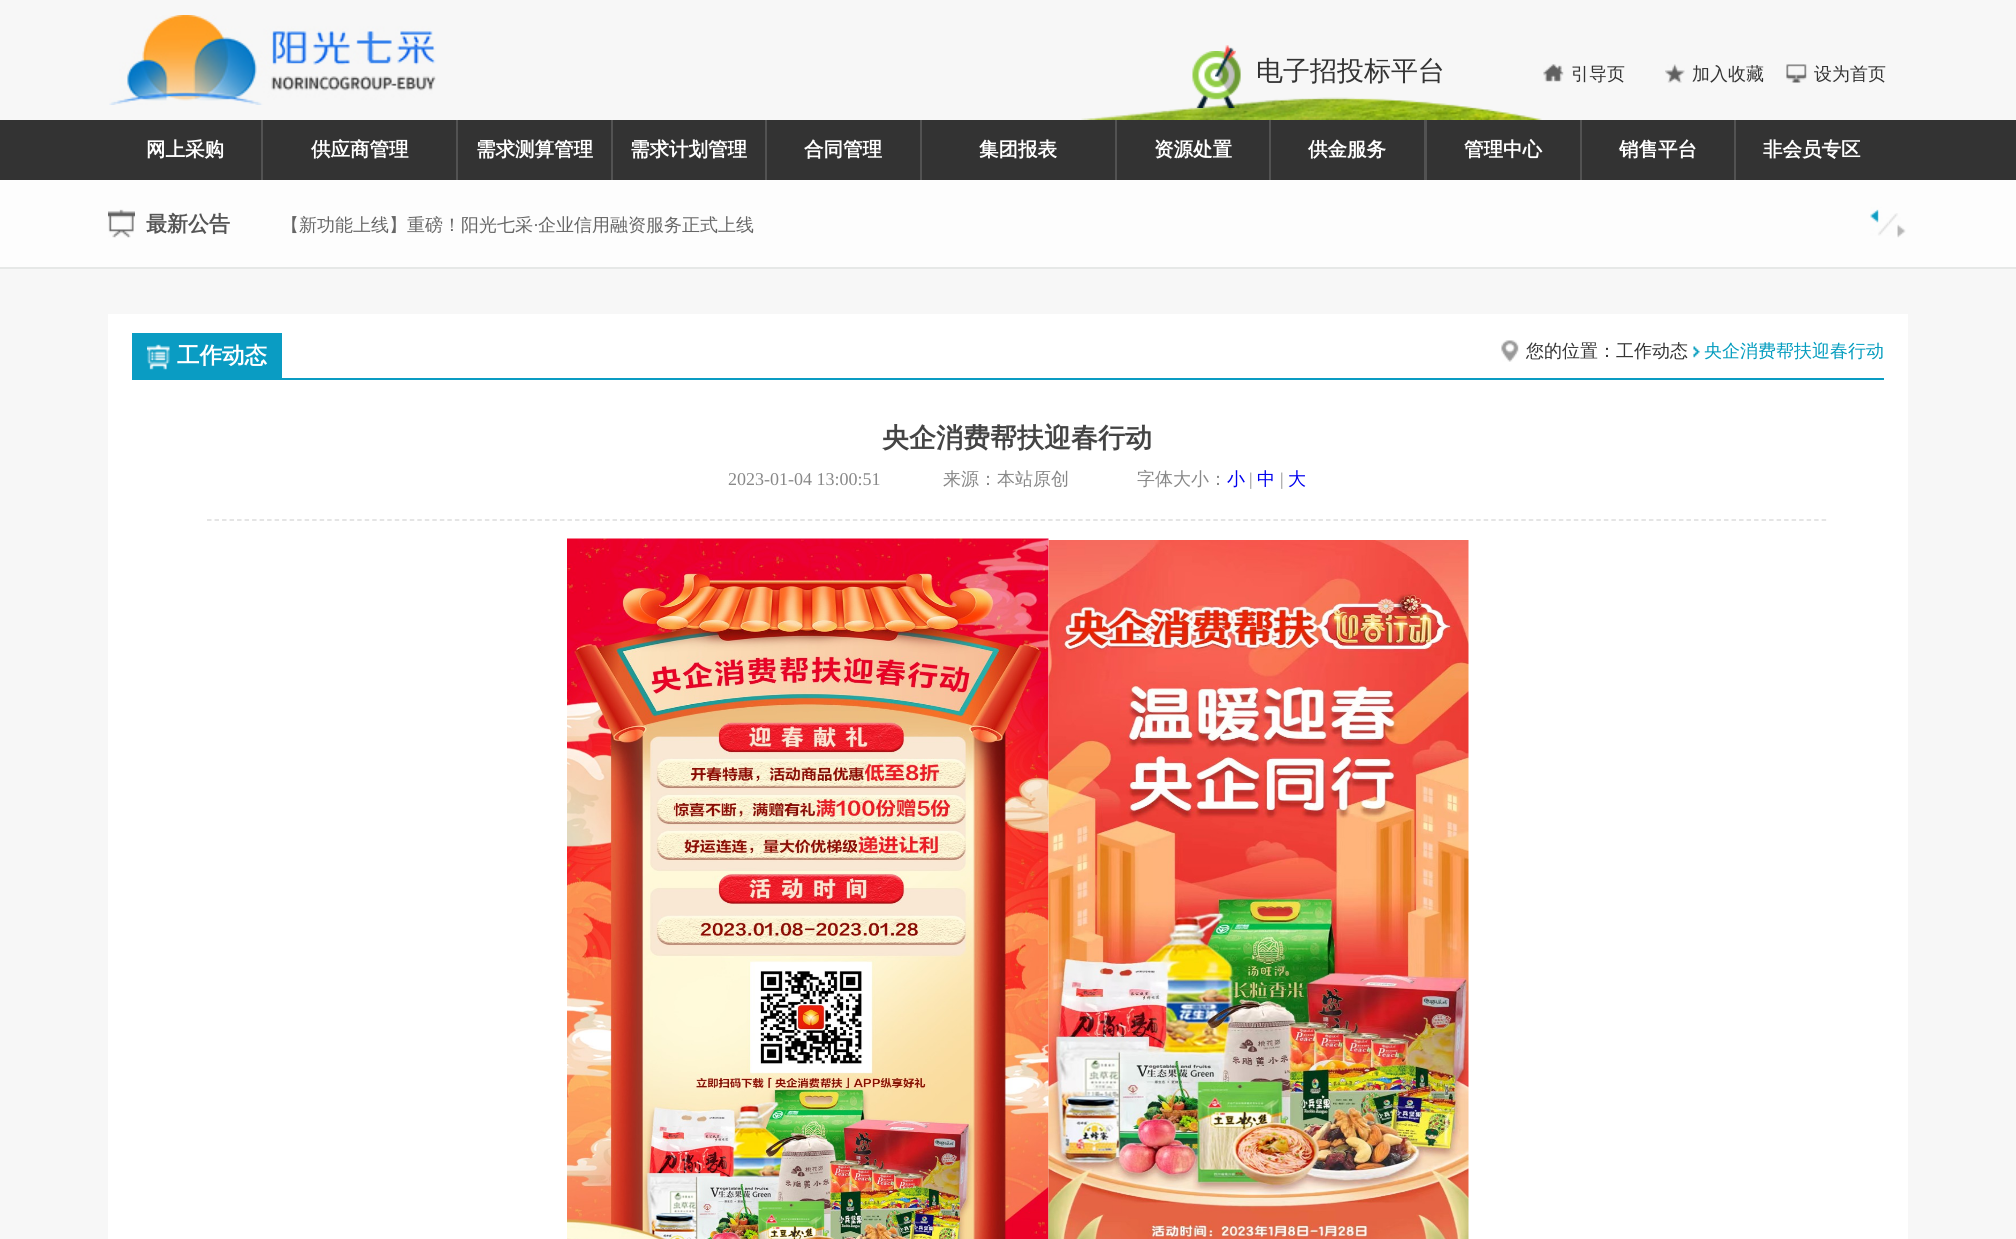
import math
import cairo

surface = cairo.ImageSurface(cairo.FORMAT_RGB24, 2016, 1239)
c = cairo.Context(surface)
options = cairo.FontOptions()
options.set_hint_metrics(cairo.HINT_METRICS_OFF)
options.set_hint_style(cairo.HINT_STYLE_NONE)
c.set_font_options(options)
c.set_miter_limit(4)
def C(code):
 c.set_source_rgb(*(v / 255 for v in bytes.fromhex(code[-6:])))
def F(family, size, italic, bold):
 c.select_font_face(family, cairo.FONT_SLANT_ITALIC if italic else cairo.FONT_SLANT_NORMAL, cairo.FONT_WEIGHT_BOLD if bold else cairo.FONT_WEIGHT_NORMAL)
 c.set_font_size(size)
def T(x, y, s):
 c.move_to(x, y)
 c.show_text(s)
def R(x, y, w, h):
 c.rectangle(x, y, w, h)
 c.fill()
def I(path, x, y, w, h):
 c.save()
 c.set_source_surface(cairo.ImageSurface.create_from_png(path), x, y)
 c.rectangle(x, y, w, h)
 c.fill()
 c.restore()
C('f7f7f7')
c.paint()
I('1.png',109,15,327,90)
I('5.png',1081,97,461,23)
I('3.png',1192,51,49,57)
I('4.png',1216,55,25,40)
I('2.png',1215,45,21,32)
F('WenQuanYi Zen Hei Medium',27,0,0)
C('333333')
T(1256,80,'电子招投标平台')
I('6.png',1543,64,21,18)
F('WenQuanYi Zen Hei Medium',18,0,0)
T(1571,80,'引导页')
I('7.png',1665,64,20,19)
T(1692,80,'加入收藏')
I('8.png',1786,64,21,19)
T(1814,80,'设为首页')
R(0,120,2016,60)
F('WenQuanYi Zen Hei',19.5,0,1)
C('ffffff')
T(146,156,'网上采购')
C('525252')
R(261,120,2,60)
C('ffffff')
T(311,156,'供应商管理')
C('525252')
R(456,120,2,60)
C('ffffff')
T(476,156,'需求测算管理')
C('525252')
R(611,120,2,60)
C('ffffff')
T(630,156,'需求计划管理')
C('525252')
R(765,120,2,60)
C('ffffff')
T(804,156,'合同管理')
C('525252')
R(920,120,2,60)
C('ffffff')
T(979,156,'集团报表')
C('525252')
R(1115,120,2,60)
C('ffffff')
T(1154,156,'资源处置')
C('525252')
R(1269,120,2,60)
C('ffffff')
T(1308,156,'供金服务')
C('525252')
R(1424,120,3,60)
C('ffffff')
T(1464,156,'管理中心')
C('525252')
R(1580,120,2,60)
C('ffffff')
T(1619,156,'销售平台')
C('525252')
R(1734,120,2,60)
C('ffffff')
T(1763,156,'非会员专区')
C('fdfdfd')
R(0,180,2016,87)
C('e6e8e7')
R(0,267,2016,2)
I('9.png',108,209,27,29)
F('WenQuanYi Zen Hei',21,0,1)
C('555555')
T(146,231,'最新公告')
F('WenQuanYi Zen Hei Medium',18,0,0)
C('666666')
T(281,231,'【新功能上线】重磅！阳光七采')
F('Liberation Serif',18,0,0)
T(533,231,'·')
F('WenQuanYi Zen Hei Medium',18,0,0)
T(538,231,'企业信用融资服务正式上线')
I('11.png',1888,213,18,25)
I('10.png',1870,207,19,29)
C('ffffff')
R(108,314,1800,925)
C('0a9cc3')
R(132,378,1752,2)
R(132,333,150,45)
I('12.png',147,344,23,26)
F('WenQuanYi Zen Hei',22.5,0,1)
C('ffffff')
T(177,363,'工作动态')
I('13.png',1501,340,18,22)
F('WenQuanYi Zen Hei Medium',18,0,0)
C('333333')
T(1526,357,'您的位置：工作动态')
I('14.png',1693,346,7,12)
C('039cbe')
T(1704,357,'央企消费帮扶迎春行动')
c.new_path()
c.move_to(207,520)
c.line_to(1827,520)
C('dddddd')
c.set_line_width(1.5)
c.set_dash([4.5,3.01])
c.stroke()
F('WenQuanYi Zen Hei',27,0,1)
C('444444')
T(882,447,'央企消费帮扶迎春行动')
F('Liberation Serif',18,0,0)
C('888888')
T(728,485,'2023-01-04 13:00:51')
F('WenQuanYi Zen Hei Medium',18,0,0)
T(943,485,'来源：本站原创')
T(1137,485,'字体大小：')
C('0000ee')
T(1227,485,'小')
F('Liberation Serif',18,0,0)
C('888888')
T(1249,485,'|')
F('WenQuanYi Zen Hei Medium',18,0,0)
C('0000ee')
T(1257,485,'中')
F('Liberation Serif',18,0,0)
C('888888')
T(1280,485,'|')
F('WenQuanYi Zen Hei Medium',18,0,0)
C('0000ee')
T(1288,485,'大')
I('15.png',567,538,482,701)
I('16.png',1048,540,421,699)
surface.write_to_png('o.png')
